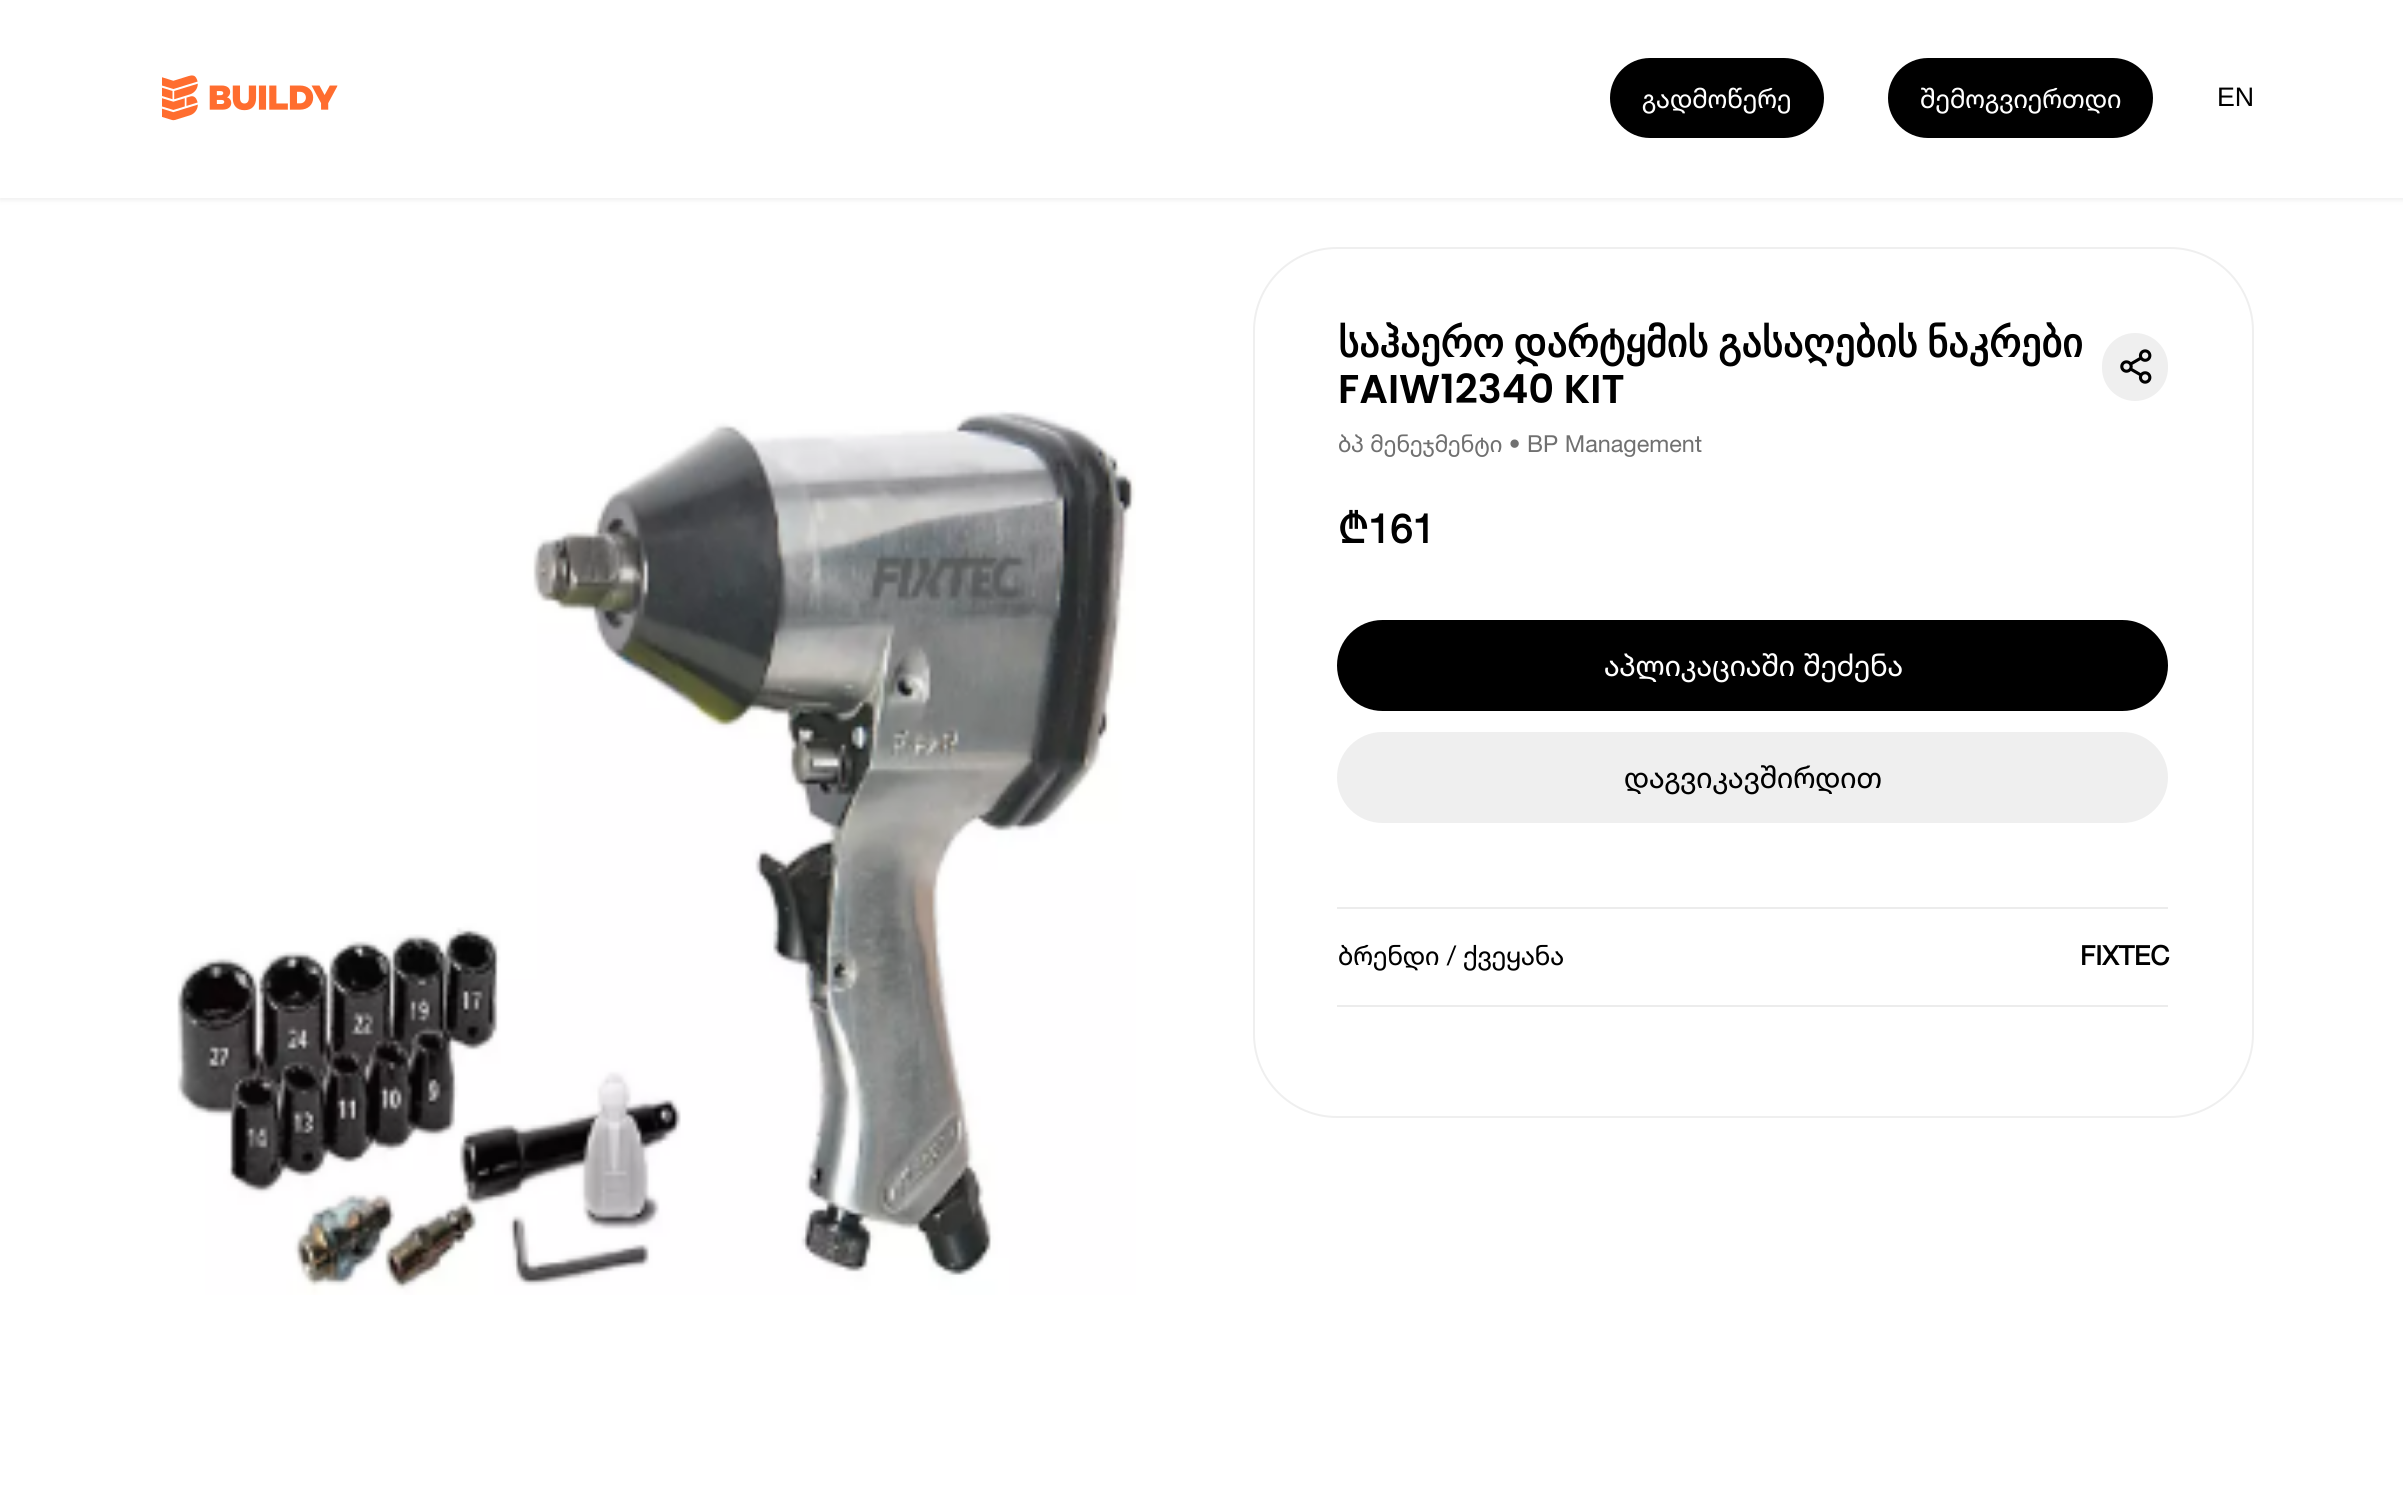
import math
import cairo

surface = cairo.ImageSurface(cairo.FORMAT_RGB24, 2403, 1509)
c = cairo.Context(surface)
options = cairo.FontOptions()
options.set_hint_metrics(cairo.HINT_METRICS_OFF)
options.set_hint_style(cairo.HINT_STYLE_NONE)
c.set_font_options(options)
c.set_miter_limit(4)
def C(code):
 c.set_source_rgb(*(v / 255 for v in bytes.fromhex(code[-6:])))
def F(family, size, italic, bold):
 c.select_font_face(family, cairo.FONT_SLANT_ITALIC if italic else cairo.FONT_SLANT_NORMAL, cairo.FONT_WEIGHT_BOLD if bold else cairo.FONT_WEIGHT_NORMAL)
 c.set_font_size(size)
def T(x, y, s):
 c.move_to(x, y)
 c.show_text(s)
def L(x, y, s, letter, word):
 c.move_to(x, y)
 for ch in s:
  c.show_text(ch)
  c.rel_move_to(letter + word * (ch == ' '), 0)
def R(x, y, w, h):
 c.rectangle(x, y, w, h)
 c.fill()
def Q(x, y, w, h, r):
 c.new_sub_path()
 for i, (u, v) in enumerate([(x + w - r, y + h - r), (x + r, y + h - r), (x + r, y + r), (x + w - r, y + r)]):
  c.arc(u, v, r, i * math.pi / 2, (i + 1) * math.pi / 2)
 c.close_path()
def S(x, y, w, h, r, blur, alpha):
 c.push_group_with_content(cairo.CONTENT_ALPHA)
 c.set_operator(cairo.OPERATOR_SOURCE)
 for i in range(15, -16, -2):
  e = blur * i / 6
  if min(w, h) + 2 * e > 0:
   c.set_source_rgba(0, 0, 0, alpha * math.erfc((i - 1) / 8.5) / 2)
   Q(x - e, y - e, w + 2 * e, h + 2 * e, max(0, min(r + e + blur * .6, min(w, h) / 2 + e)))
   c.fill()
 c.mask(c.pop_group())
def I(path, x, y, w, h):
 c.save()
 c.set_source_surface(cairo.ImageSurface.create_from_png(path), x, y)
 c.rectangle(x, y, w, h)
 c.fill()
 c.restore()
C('ffffff')
c.paint()
C('bababa')
S(0,2,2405,198,0,2.5,.25)
C('ffffff')
R(0,0,2403,198)
I('1.png',162,75,176,46)
C('000000')
Q(1610,58,214,80,40)
c.fill()
F('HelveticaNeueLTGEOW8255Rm',26.75,0,0)
C('ffffff')
T(1642,108,'გადმოწერე')
C('000000')
Q(1888,58,265,80,40)
c.fill()
C('ffffff')
T(1920,108,'შემოგვიერთდი')
F('Liberation Sans',26.75,0,0)
C('000000')
T(2217,106,'EN')
I('2.png',177,410,959,885)
Q(1254,248,999,869,83)
C('efefef')
c.stroke()
F('DejaVu Sans',40.1,0,1)
C('000000')
L(1338,357,'საჰაერო დარტყმის გასაღების ნაკრები',0,-3)
F('Poppins SemiBold',40.1,0,0)
T(1338,403,'FAIW12340 KIT')
C('efefef')
Q(2102,333,66,68,33)
c.fill()
I('3.png',2120,349,32,35)
F('HelveticaNeueLTGEOW8255Rm',23.4,0,0)
C('707070')
T(1338,452,'ბპ მენეჯმენტი • BP Management')
F('HelveticaNeueLTGEOW8255Rm',40.1,0,1)
C('000000')
T(1338,543,'₾161')
Q(1337,620,831,91,45.5)
c.fill()
F('HelveticaNeueLTGEOW8255Rm',30,0,0)
C('ffffff')
T(1604,676,'აპლიკაციაში შეძენა')
C('efefef')
Q(1337,732,831,91,45.5)
c.fill()
C('000000')
T(1624,788,'დაგვიკავშირდით')
C('ececec')
R(1337,907,831,2)
R(1337,1005,831,2)
F('HelveticaNeueLTGEOW8255Rm',26.75,0,0)
C('000000')
T(1338,965,'ბრენდი / ქვეყანა')
F('HelveticaNeueLTGEOW8255Rm',26.75,0,1)
T(2080,965,'FIXTEC')
surface.write_to_png('o.png')
